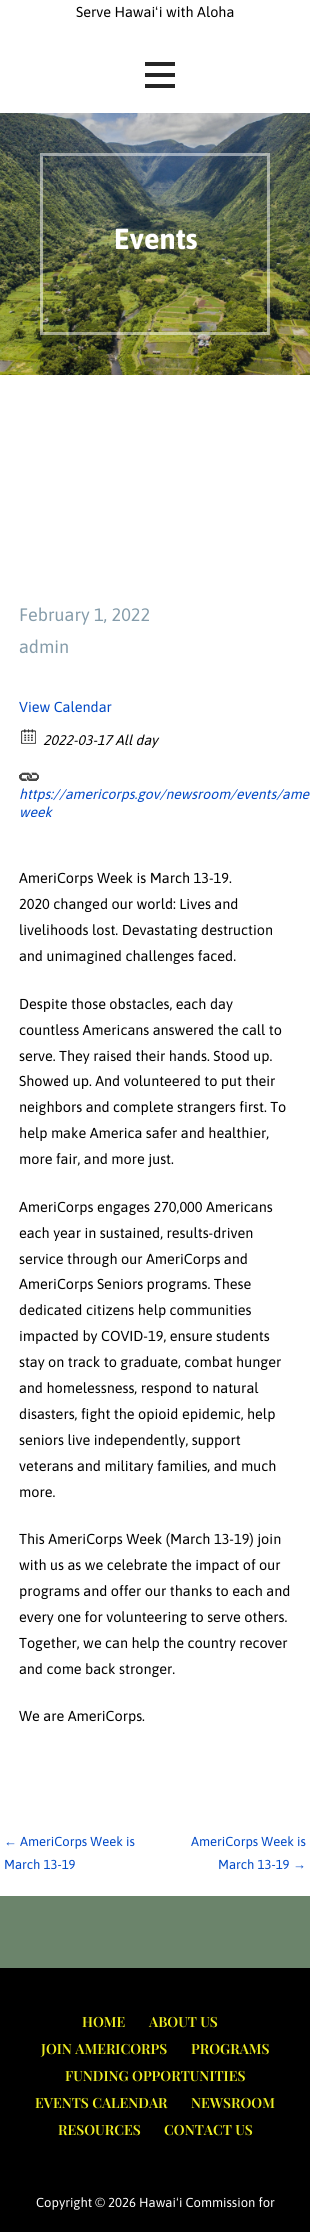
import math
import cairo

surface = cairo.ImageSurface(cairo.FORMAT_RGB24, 310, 2232)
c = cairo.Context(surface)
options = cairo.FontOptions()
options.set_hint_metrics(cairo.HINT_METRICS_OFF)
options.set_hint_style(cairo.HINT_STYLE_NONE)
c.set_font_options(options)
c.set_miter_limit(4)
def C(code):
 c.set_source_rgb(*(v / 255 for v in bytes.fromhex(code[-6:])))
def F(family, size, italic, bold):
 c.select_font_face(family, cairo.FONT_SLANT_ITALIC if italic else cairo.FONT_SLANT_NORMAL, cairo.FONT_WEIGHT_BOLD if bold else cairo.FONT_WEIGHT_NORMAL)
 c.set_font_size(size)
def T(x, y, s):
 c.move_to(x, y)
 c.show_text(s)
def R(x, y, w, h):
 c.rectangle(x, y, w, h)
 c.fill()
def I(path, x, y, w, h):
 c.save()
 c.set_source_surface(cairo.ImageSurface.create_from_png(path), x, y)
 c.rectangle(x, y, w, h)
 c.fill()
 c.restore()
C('ffffff')
c.paint()
F('Asap',14.4,0,0)
C('000000')
T(76,17,'Serve Hawai i with Aloha')
F('Liberation Sans',14.4,0,0)
T(155,17,'ʻ')
C('252525')
R(145,62,30,4)
R(145,73,30,4)
R(145,84,30,4)
I('1.png',0,113,310,262)
c.rectangle(41.5,154.5,227,179)
c.set_source_rgba(1,1,1,0.5)
c.set_line_width(3)
c.stroke()
F('Asap',29,0,1)
C('ffffff')
T(114,249,'Events')
F('Asap',18,0,0)
C('859caa')
T(19,621,'February 1, 2022')
T(19,653,'admin')
F('Asap',14.4,0,0)
C('0048c6')
T(19,712,'View Calendar')
I('2.png',21,729,15,15)
F('Asap',14,1,0)
C('000000')
T(43,745,'2022-03-17 All day')
I('3.png',19,772,20,9)
C('0048c6')
T(19,799,'https://americorps.gov/newsroom/events/ame')
T(19,817,'week')
F('Asap',14.4,0,0)
C('000000')
T(19,883,'AmeriCorps Week is March 13-19.')
T(19,909,'2020 changed our world: Lives and')
T(19,935,'livelihoods lost. Devastating destruction')
T(19,961,'and unimagined challenges faced.')
T(19,1009,'Despite those obstacles, each day')
T(19,1035,'countless Americans answered the call to')
T(19,1061,'serve. They raised their hands. Stood up.')
T(19,1086,'Showed up. And volunteered to put their')
T(19,1112,'neighbors and complete strangers first. To')
T(19,1138,'help make America safer and healthier,')
T(19,1164,'more fair, and more just.')
T(19,1212,'AmeriCorps engages 270,000 Americans')
T(19,1238,'each year in sustained, results-driven')
T(19,1264,'service through our AmeriCorps and')
T(19,1289,'AmeriCorps Seniors programs. These')
T(19,1315,'dedicated citizens help communities')
T(19,1341,'impacted by COVID-19, ensure students')
T(19,1367,'stay on track to graduate, combat hunger')
T(19,1393,'and homelessness, respond to natural')
T(19,1419,'disasters, fight the opioid epidemic, help')
T(19,1445,'seniors live independently, support')
T(19,1471,'veterans and military families, and much')
T(19,1497,'more.')
T(19,1544,'This AmeriCorps Week (March 13-19) join')
T(19,1570,'with us as we celebrate the impact of our')
T(19,1596,'programs and offer our thanks to each and')
T(19,1622,'every one for volunteering to serve others.')
T(19,1648,'Together, we can help the country recover')
T(19,1674,'and come back stronger.')
T(19,1721,'We are AmeriCorps.')
F('Liberation Sans',13,0,0)
C('0048c6')
T(4,1846,'←')
F('Asap',13,0,0)
T(20,1846,'AmeriCorps Week is')
T(4,1869,'March 13-19')
T(191,1846,'AmeriCorps Week is')
T(218,1869,'March 13-19')
F('Liberation Sans',13,0,0)
T(293,1869,'→')
C('6b846b')
R(0,1896,310,72)
C('000000')
R(0,1968,310,264)
F('Playfair Display SemiBold',14,0,0)
C('eeee22')
T(82,2027,'HOME')
T(149,2027,'ABOUT US')
T(41,2054,'JOIN AMERICORPS')
T(191,2054,'PROGRAMS')
T(65,2081,'FUNDING OPPORTUNITIES')
T(35,2108,'EVENTS CALENDAR')
T(191,2108,'NEWSROOM')
T(58,2135,'RESOURCES')
T(164,2135,'CONTACT US')
F('Asap',13,0,0)
C('ffffff')
T(36,2207,'Copyright © 2026 Hawai i Commission for')
F('Liberation Sans',13,0,0)
T(176,2207,'ʻ')
surface.write_to_png('o.png')
